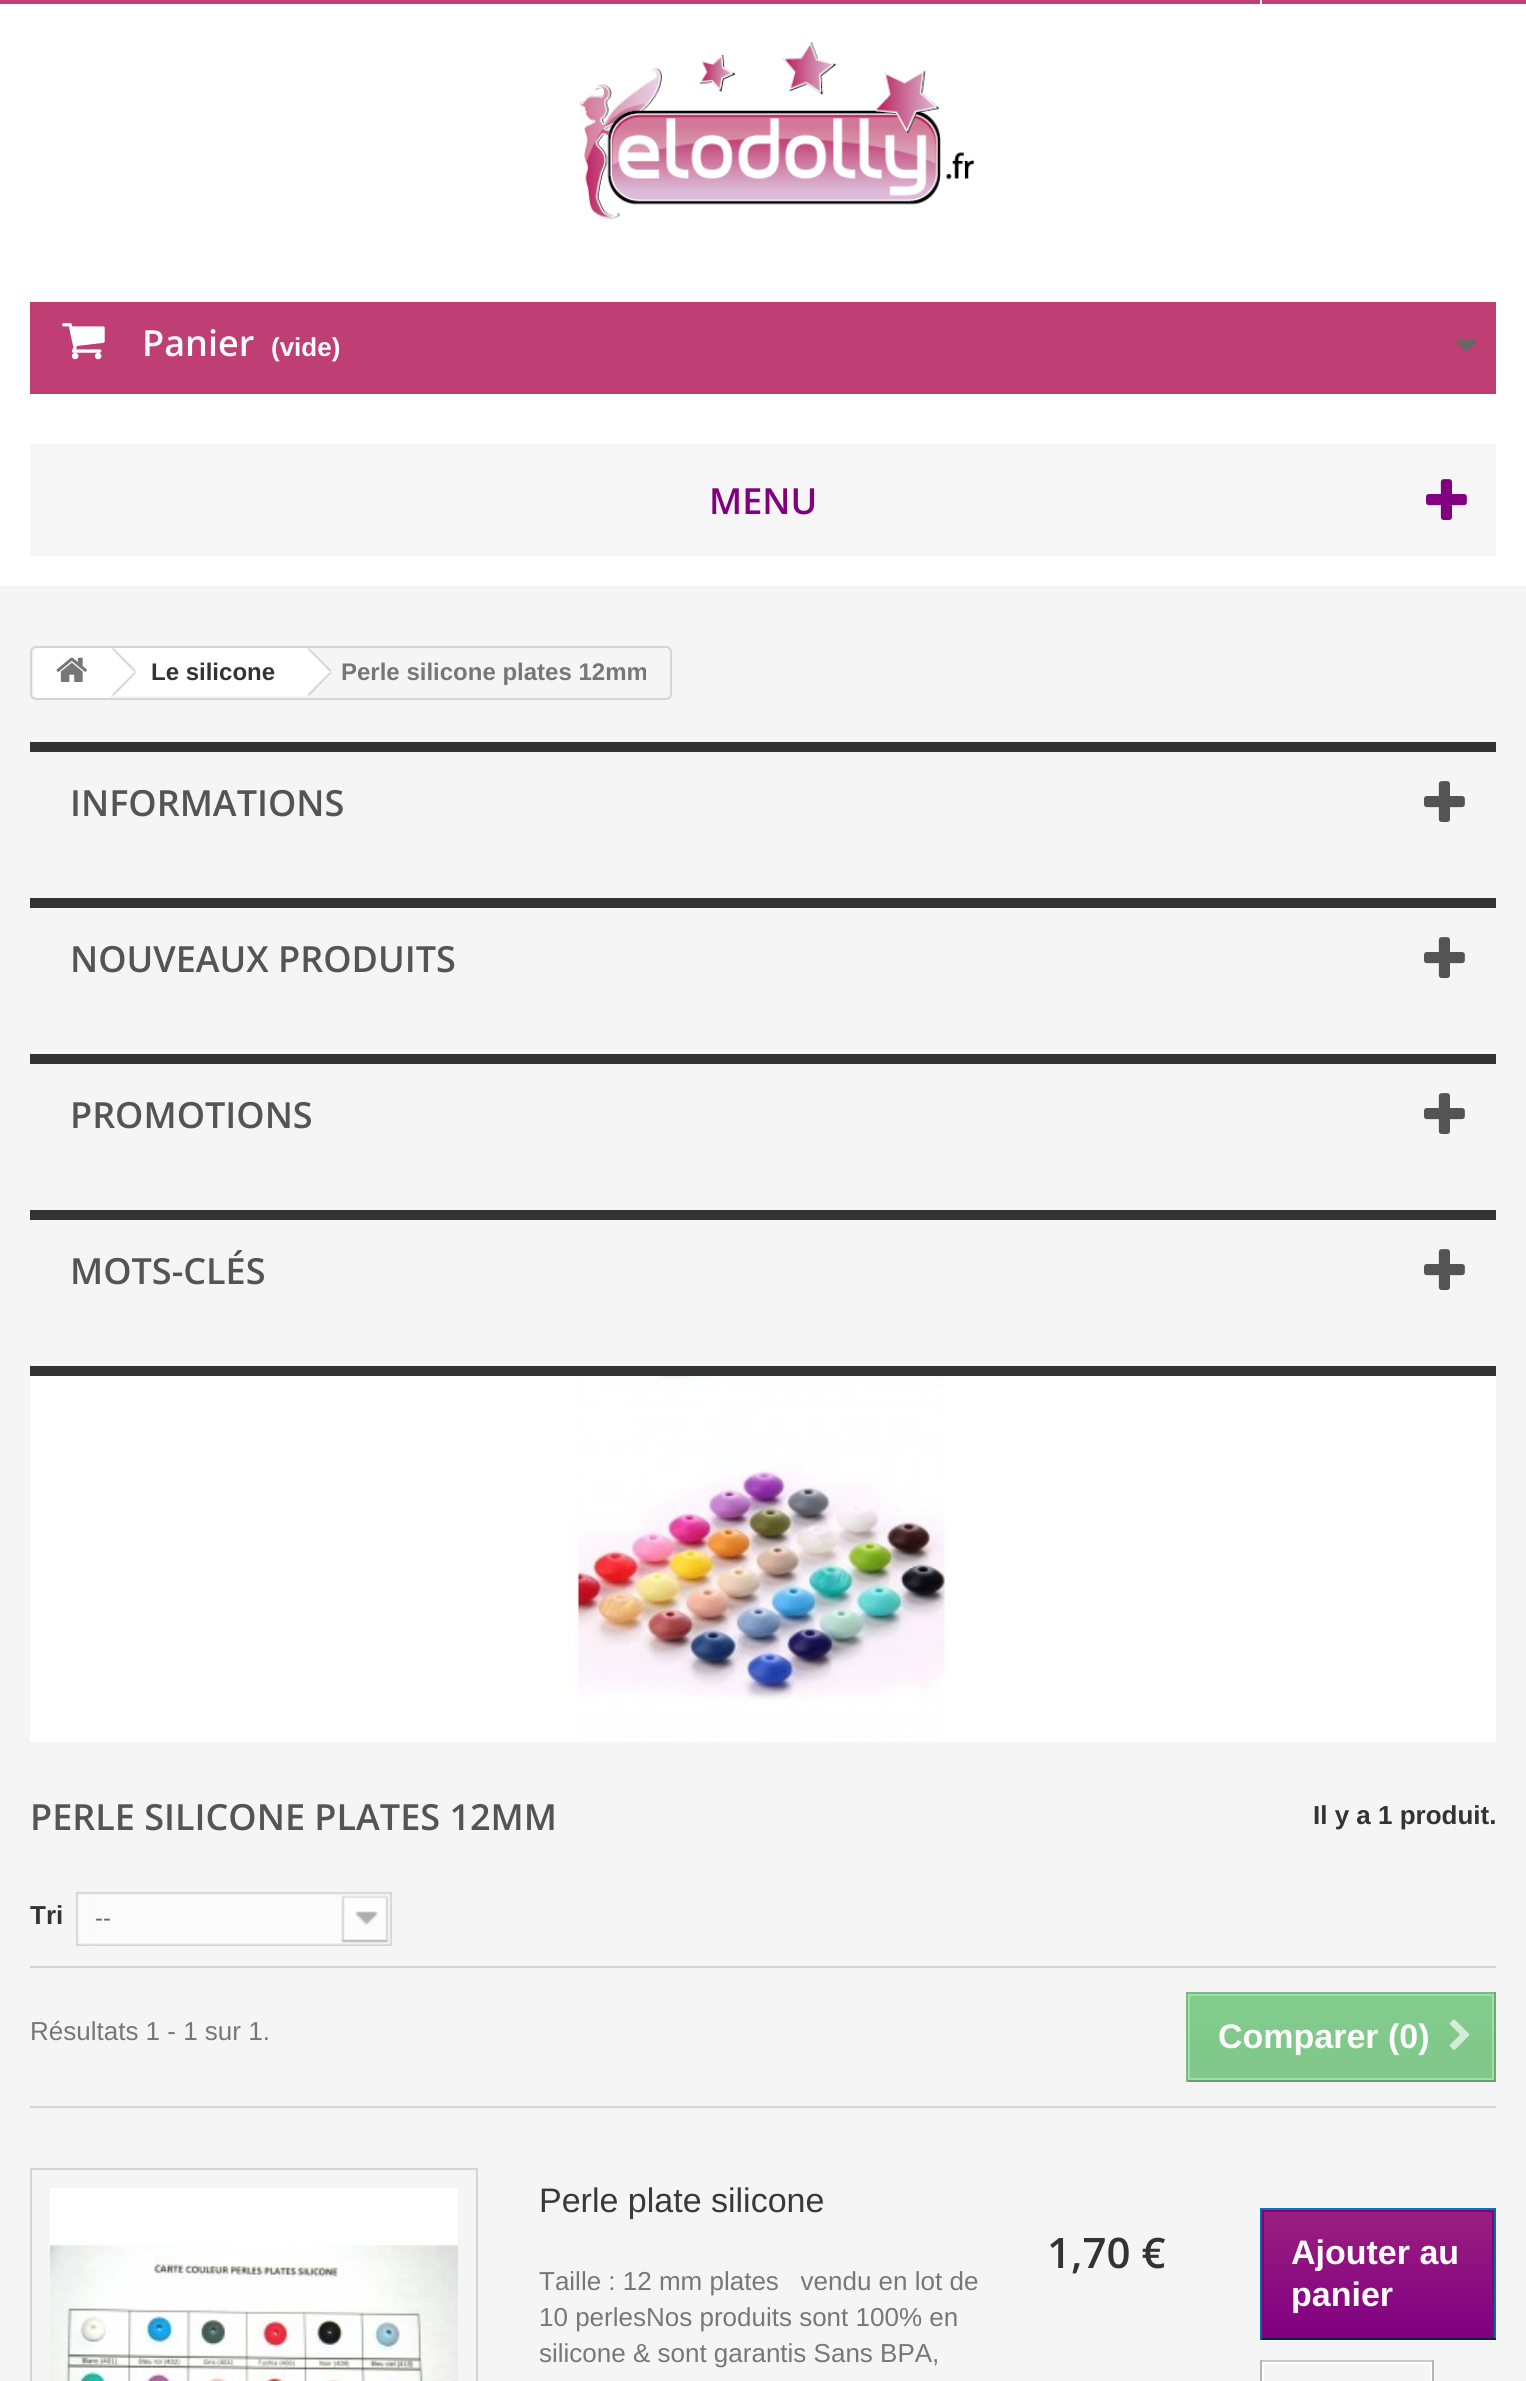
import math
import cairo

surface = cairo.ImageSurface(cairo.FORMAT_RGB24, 1526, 2381)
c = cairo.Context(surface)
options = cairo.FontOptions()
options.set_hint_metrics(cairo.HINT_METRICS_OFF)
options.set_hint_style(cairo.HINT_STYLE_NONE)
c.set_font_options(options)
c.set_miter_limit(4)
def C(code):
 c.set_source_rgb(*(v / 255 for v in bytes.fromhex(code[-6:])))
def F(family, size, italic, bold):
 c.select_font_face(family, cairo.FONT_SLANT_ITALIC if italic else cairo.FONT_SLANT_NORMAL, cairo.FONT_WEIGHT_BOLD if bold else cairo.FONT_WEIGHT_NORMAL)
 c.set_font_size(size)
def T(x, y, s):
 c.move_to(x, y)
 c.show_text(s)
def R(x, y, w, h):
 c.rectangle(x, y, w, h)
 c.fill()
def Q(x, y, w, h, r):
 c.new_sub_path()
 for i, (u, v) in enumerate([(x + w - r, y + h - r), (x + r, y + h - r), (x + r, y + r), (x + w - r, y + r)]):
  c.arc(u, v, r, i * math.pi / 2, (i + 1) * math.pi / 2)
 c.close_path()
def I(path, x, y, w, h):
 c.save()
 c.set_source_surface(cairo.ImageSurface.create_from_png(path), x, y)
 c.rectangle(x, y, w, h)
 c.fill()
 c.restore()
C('ffffff')
c.paint()
C('bf3e73')
R(0,0,1526,4)
C('ffffff')
R(1260,0,2,4)
I('1.png',579,42,395,177)
C('bf3e73')
R(30,302,1466,92)
I('2.png',62,323,43,37)
F('Open Sans SemiBold',36,0,0)
C('fcfcfc')
T(142,356,'Panier')
F('Liberation Sans',26,0,1)
T(271,356,'(vide)')
I('3.png',1456,340,21,12)
C('f6f6f6')
R(30,444,1466,112)
F('Open Sans SemiBold',36,0,0)
C('800080')
T(709,514,'MENU')
I('4.png',1426,479,41,41)
C('f5f5f5')
R(0,586,1526,1795)
Q(31,647,640,52,5)
C('d6d4d4')
c.stroke()
C('ffffff')
c.new_path()
c.move_to(40,648)
c.line_to(110,648)
c.line_to(110,698)
c.line_to(40,698)
c.curve_to(36.5,698,34,695.5,34,692)
c.line_to(34,654)
c.curve_to(34,650.5,36.5,648,40,648)
c.close_path()
c.fill()
I('5.png',56,657,31,25)
R(110,648,196,48)
C('d6d4d4')
c.new_path()
c.move_to(113.5,648)
c.line_to(136,670.5)
c.line_to(134.5,672)
c.line_to(112,649)
c.close_path()
c.move_to(134.5,672)
c.line_to(136,673)
c.line_to(113.5,696)
c.line_to(112,694.5)
c.close_path()
c.fill()
F('Liberation Sans',24,0,1)
C('333333')
T(151,680,'Le silicone')
C('ffffff')
c.new_path()
c.move_to(310,649)
c.line_to(330,669)
c.curve_to(332,671,332,673,330,675)
c.line_to(310,694)
c.curve_to(309,696,306,696,305,694)
c.line_to(285,675)
c.curve_to(283,673,283,671,285,669)
c.line_to(305,649)
c.curve_to(306,648,309,648,310,649)
c.close_path()
c.fill()
C('d6d4d4')
c.new_path()
c.move_to(309,648)
c.line_to(331.5,670.5)
c.line_to(330,672)
c.line_to(307.5,649)
c.close_path()
c.move_to(330,672)
c.line_to(331.5,673)
c.line_to(309,696)
c.line_to(307.5,694.5)
c.close_path()
c.fill()
C('777777')
T(341,680,'Perle silicone plates 12mm')
C('333333')
R(30,742,1466,10)
F('Open Sans SemiBold',36,0,0)
C('555454')
T(70,816,'INFORMATIONS')
I('6.png',1424,781,41,41)
C('333333')
R(30,898,1466,10)
C('555454')
T(70,972,'NOUVEAUX PRODUITS')
I('6.png',1424,937,41,41)
C('333333')
R(30,1054,1466,10)
C('555454')
T(70,1128,'PROMOTIONS')
I('6.png',1424,1093,41,41)
C('333333')
R(30,1210,1466,10)
C('555454')
T(70,1284,'MOTS-CLÉS')
I('6.png',1424,1249,41,41)
C('333333')
R(30,1366,1466,10)
I('7.png',30,1376,1466,366)
C('555454')
T(30,1830,'PERLE SILICONE PLATES 12MM')
F('Liberation Sans',26,0,1)
C('333333')
T(1313,1824,'Il y a 1 produit.')
C('d6d4d4')
R(30,1966,1466,2)
C('333333')
T(30,1924,'Tri')
I('8.png',76,1892,20,54)
I('9.png',96,1892,296,54)
F('Liberation Sans',24,0,0)
C('666666')
T(95,1926,'--')
F('Liberation Sans',26,0,0)
C('777777')
T(30,2040,'Résultats 1 - 1 sur 1.')
gradient = cairo.LinearGradient(1341,1994,1341,2080)
gradient.add_color_stop_rgba(0,0.506,0.804,0.549,1)
gradient.add_color_stop_rgba(1,0.506,0.776,0.545,1)
c.set_source(gradient)
R(1190,1996,302,82)
C('7bba85')
R(1186,1992,310,2)
C('6da876')
R(1494,1992,2,90)
C('679d6f')
R(1186,2080,310,2)
C('7bba85')
R(1186,1992,2,90)
c.rectangle(1189,1995,304,84)
C('a1e0a4')
c.stroke()
F('Liberation Sans',34,0,1)
C('fcfcfc')
T(1218,2048,'Comparer (0)')
I('10.png',1449,2019,21,31)
C('d6d4d4')
R(30,2106,1466,2)
c.rectangle(31,2169,446,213)
c.stroke()
I('11.png',50,2188,408,193)
F('Liberation Sans',34,0,0)
C('3a3939')
T(539,2212,'Perle plate silicone')
F('Liberation Sans',26,0,0)
C('777777')
T(539,2290,'Taille : 12 mm plates   vendu en lot de')
T(539,2326,'10 perlesNos produits sont 100% en')
T(539,2362,'silicone & sont garantis Sans BPA,')
F('Open Sans SemiBold',42,0,0)
C('333333')
T(1047,2268,'1,70 €')
C('0079b6')
R(1260,2208,236,2)
C('006fa8')
R(1494,2208,2,132)
C('012740')
R(1260,2338,236,2)
C('006fa8')
R(1260,2208,2,132)
gradient = cairo.LinearGradient(1378,2212,1378,2336)
gradient.add_color_stop_rgba(0,0.608,0.122,0.502,1)
gradient.add_color_stop_rgba(1,0.502,0,0.502,1)
c.set_source(gradient)
R(1264,2212,228,124)
c.rectangle(1263,2211,230,126)
C('800080')
c.stroke()
F('Liberation Sans',34,0,1)
C('fcfcfc')
T(1291,2264,'Ajouter au')
T(1291,2306,'panier')
C('cacaca')
R(1260,2360,174,2)
C('b7b7b7')
R(1432,2360,2,21)
R(1260,2360,2,21)
c.rectangle(1263,2363,168,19)
C('ffffff')
c.stroke()
surface.write_to_png('o.png')
